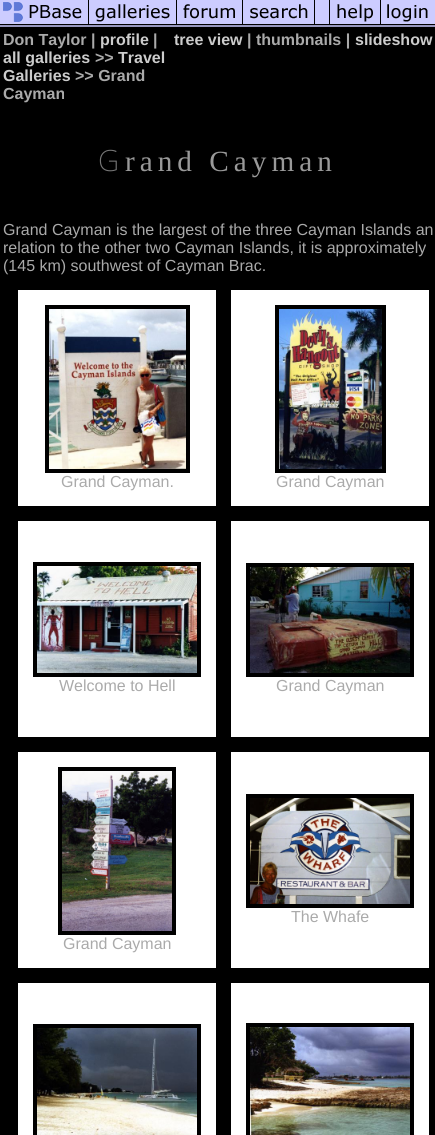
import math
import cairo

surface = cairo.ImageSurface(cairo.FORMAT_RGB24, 435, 1135)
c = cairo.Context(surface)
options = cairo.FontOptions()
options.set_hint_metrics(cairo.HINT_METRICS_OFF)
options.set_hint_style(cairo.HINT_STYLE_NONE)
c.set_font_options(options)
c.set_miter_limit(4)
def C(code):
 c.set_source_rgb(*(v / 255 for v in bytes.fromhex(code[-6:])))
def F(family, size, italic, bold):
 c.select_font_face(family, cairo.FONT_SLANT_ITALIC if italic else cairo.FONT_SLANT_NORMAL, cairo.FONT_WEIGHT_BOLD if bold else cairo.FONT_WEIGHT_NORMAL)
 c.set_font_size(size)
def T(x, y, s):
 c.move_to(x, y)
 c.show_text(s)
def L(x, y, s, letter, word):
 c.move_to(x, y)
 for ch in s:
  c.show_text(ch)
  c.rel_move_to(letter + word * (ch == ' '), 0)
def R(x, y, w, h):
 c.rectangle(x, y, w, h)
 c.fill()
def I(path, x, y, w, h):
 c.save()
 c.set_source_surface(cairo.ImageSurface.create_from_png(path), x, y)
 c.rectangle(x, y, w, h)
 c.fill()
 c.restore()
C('000000')
c.paint()
I('1.png',0,0,89,27)
I('2.png',89,0,88,27)
I('3.png',177,0,66,27)
I('4.png',243,0,72,27)
I('5.png',315,0,14,27)
I('6.png',329,0,52,27)
I('7.png',381,0,54,27)
F('Liberation Sans',16,0,1)
C('aaaaaa')
T(3,45,'Don Taylor |')
C('cccccc')
T(100,45,'profile')
C('aaaaaa')
T(153,45,'|')
C('cccccc')
T(3,63,'all galleries')
C('aaaaaa')
T(95,63,'>>')
C('cccccc')
T(118,63,'Travel')
T(3,81,'Galleries')
C('aaaaaa')
T(75,81,'>> Grand')
T(3,99,'Cayman')
C('cccccc')
T(174,45,'tree view')
C('aaaaaa')
T(247,45,'| thumbnails |')
C('cccccc')
T(355,45,'slideshow')
F('Noto Sans ExtraLight',29.25,0,0)
C('777777')
L(98,171,'G',5,0)
F('Liberation Serif',29.25,0,0)
C('999999')
L(125,171,'rand Cayman',5,0)
F('Liberation Sans',16,0,0)
C('aaaaaa')
T(3,235,'Grand Cayman is the largest of the three Cayman Islands an')
T(3,253,'relation to the other two Cayman Islands, it is approximately')
T(3,271,'(145 km) southwest of Cayman Brac.')
C('ffffff')
R(18,290,198,216)
c.rectangle(47,307,141,164)
C('000000')
c.set_line_width(4)
c.stroke()
I('8.png',49,309,137,160)
C('aaaaaa')
T(61,487,'Grand Cayman.')
C('ffffff')
R(231,290,198,216)
c.rectangle(277,307,107,164)
C('000000')
c.stroke()
I('9.png',279,309,103,160)
C('aaaaaa')
T(276,487,'Grand Cayman')
C('ffffff')
R(18,521,198,216)
c.rectangle(35,564,164,111)
C('000000')
c.stroke()
I('10.png',37,566,160,107)
C('aaaaaa')
T(59,691,'Welcome to Hell')
C('ffffff')
R(231,521,198,216)
c.rectangle(248,565,164,110)
C('000000')
c.stroke()
I('11.png',250,567,160,106)
C('aaaaaa')
T(276,691,'Grand Cayman')
C('ffffff')
R(231,752,198,216)
c.rectangle(248,796,164,110)
C('000000')
c.stroke()
I('12.png',250,798,160,106)
C('aaaaaa')
T(291,922,'The Whafe')
C('ffffff')
R(18,752,198,216)
c.rectangle(60,769,114,164)
C('000000')
c.stroke()
I('13.png',62,771,110,160)
C('aaaaaa')
T(63,949,'Grand Cayman')
C('ffffff')
R(18,983,198,152)
c.rectangle(35,1026,164,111)
C('000000')
c.stroke()
I('14.png',37,1028,160,107)
C('ffffff')
R(231,983,198,152)
c.rectangle(248,1025,164,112)
C('000000')
c.stroke()
I('15.png',250,1027,160,108)
surface.write_to_png('o.png')
